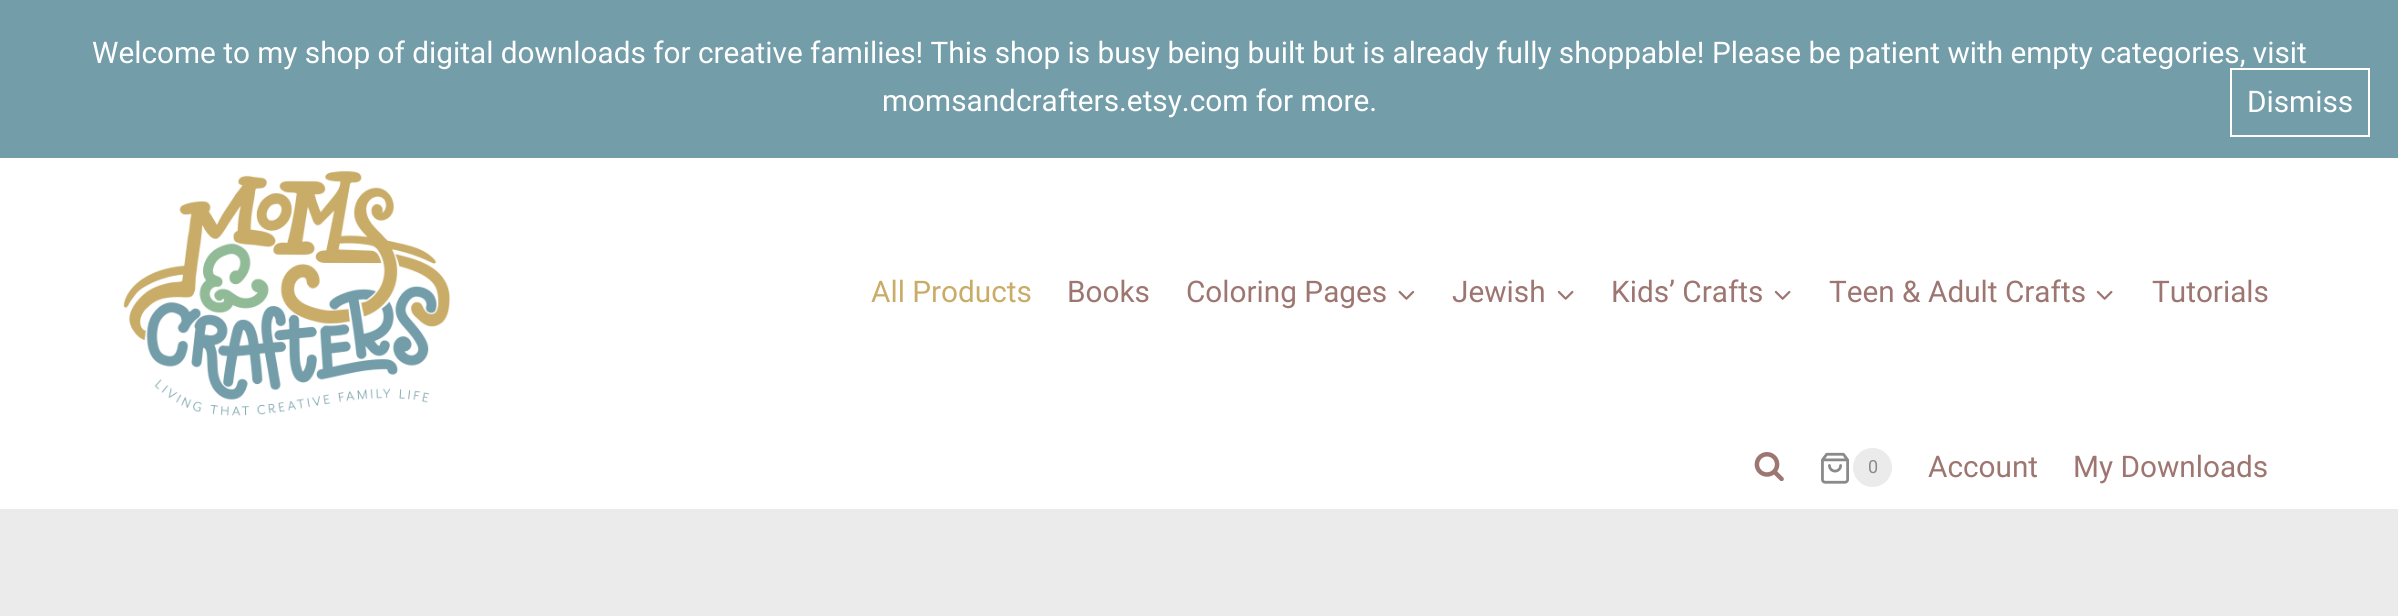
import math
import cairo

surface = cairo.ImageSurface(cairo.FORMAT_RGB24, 2398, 616)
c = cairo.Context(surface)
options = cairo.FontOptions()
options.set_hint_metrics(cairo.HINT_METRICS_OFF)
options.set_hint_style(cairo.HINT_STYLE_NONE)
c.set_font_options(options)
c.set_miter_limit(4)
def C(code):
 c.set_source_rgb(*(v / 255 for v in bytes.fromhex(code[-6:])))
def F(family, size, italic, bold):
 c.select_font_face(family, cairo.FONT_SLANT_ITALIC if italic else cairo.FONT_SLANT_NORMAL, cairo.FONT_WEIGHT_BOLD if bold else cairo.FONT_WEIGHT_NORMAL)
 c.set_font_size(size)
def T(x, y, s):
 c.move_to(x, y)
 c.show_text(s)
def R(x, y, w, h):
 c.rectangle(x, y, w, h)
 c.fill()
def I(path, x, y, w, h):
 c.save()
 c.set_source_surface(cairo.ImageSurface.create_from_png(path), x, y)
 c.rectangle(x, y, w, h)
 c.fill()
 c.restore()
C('ebebeb')
c.paint()
C('739da9')
R(0,0,2398,158)
c.rectangle(2231,69,138,67)
C('ffffff')
c.stroke()
F('Roboto',29.75,0,0)
T(92,63,'Welcome to my shop of digital downloads for creative families! This shop is busy being built but is already fully shoppable! Please be patient with empty categories, visit')
T(882,111,'momsandcrafters.etsy.com for more.')
T(2247,112,'Dismiss')
R(0,158,2398,351)
I('1.png',123,171,327,245)
C('c9ac68')
T(871,302,'All Products')
C('9e7671')
T(1067,302,'Books')
T(1186,302,'Coloring Pages')
I('2.png',1398,290,17,10)
T(1452,302,'Jewish')
I('3.png',1557,290,17,10)
T(1611,302,'Kids’ Crafts')
I('3.png',1774,290,17,10)
T(1829,302,'Teen & Adult Crafts')
I('3.png',2096,290,17,10)
T(2152,302,'Tutorials')
I('4.png',1754,452,30,29)
I('5.png',1821,452,28,32)
C('ebebeb')
c.arc(1872.5,467.5,19.5,0,2 * math.pi)
c.fill()
F('Roboto',18,0,0)
C('8a8a8a')
T(1868,473,'0')
F('Roboto',29.75,0,0)
C('9e7671')
T(1928,477,'Account')
T(2073,477,'My Downloads')
surface.write_to_png('o.png')
